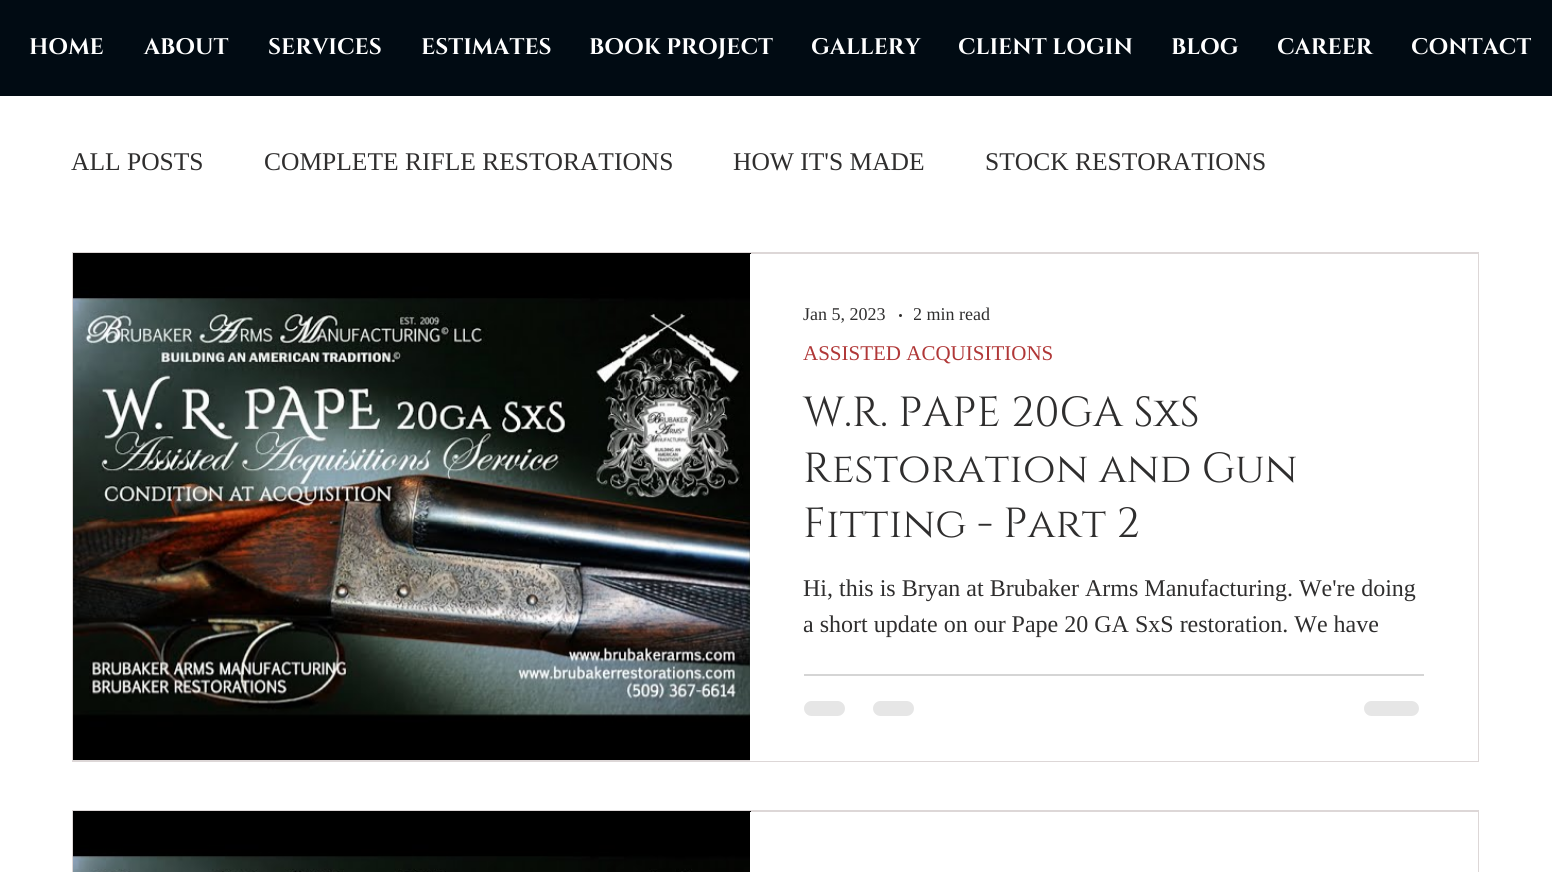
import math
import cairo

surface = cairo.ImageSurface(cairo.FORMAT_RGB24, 1552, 872)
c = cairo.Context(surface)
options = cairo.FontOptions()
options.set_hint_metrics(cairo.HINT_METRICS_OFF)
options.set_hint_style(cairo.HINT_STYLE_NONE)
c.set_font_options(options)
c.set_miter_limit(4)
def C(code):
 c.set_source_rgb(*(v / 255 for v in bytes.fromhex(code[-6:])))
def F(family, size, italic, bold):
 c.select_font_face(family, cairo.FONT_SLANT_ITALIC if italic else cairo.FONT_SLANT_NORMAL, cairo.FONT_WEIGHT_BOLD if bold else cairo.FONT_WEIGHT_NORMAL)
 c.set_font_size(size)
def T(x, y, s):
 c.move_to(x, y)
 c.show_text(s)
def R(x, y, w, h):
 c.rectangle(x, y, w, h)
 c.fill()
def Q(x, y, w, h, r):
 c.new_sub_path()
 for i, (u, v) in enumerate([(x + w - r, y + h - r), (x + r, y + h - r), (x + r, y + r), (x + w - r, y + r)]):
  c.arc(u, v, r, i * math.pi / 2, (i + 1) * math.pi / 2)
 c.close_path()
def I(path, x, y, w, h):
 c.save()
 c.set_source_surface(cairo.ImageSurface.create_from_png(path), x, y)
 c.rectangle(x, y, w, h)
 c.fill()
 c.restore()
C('ffffff')
c.paint()
C('010b13')
R(0,0,1552,96)
F('Cinzel',22.5,0,1)
C('ffffff')
T(29,54,'HOME')
T(144,54,'ABOUT')
T(268,54,'SERVICES')
T(421,54,'ESTIMATES')
T(589,54,'BOOK PROJECT')
T(811,54,'GALLERY')
T(958,54,'CLIENT LOGIN')
T(1171,54,'BLOG')
T(1277,54,'CAREER')
T(1411,54,'CONTACT')
F('Liberation Serif',25.5,0,0)
C('2f2e2e')
T(71,170,'ALL POSTS')
T(264,170,'COMPLETE RIFLE RESTORATIONS')
T(733,170,'HOW IT\'S MADE')
T(985,170,'STOCK RESTORATIONS')
c.rectangle(73,253,1405,508)
C('ddd7d7')
c.stroke()
I('1.png',73,253,678,507)
C('ffffff')
R(750,254,728,507)
F('Liberation Serif',18,0,0)
C('2f2e2e')
T(803,320,'Jan 5, 2023')
c.new_path()
c.arc(900.5,315.5,1.5,0,2 * math.pi)
c.fill()
c.save()
c.rectangle(914,305,76,22)
c.clip()
T(913,320,'2 min read')
c.restore()
F('Liberation Serif',21,0,0)
C('b03737')
T(803,360,'ASSISTED ACQUISITIONS')
F('Cinzel',42,0,0)
C('2f2e2e')
T(803,426,'W.R. PAPE 20GA SxS')
T(803,482,'Restoration and Gun')
T(803,537,'Fitting - Part 2')
F('Liberation Serif',24,0,0)
T(803,596,'Hi, this is Bryan at Brubaker Arms Manufacturing. We\'re doing')
T(803,632,'a short update on our Pape 20 GA SxS restoration. We have')
C('d5d5d5')
R(804,674,620,2)
C('e6e6e6')
Q(804,701,41,15,7.5)
c.fill()
Q(873,701,41,15,7.5)
c.fill()
Q(1364,701,55,15,7.5)
c.fill()
c.rectangle(73,811,1405,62)
C('ddd7d7')
c.stroke()
I('2.png',73,811,678,61)
C('ffffff')
R(750,812,728,60)
surface.write_to_png('o.png')
